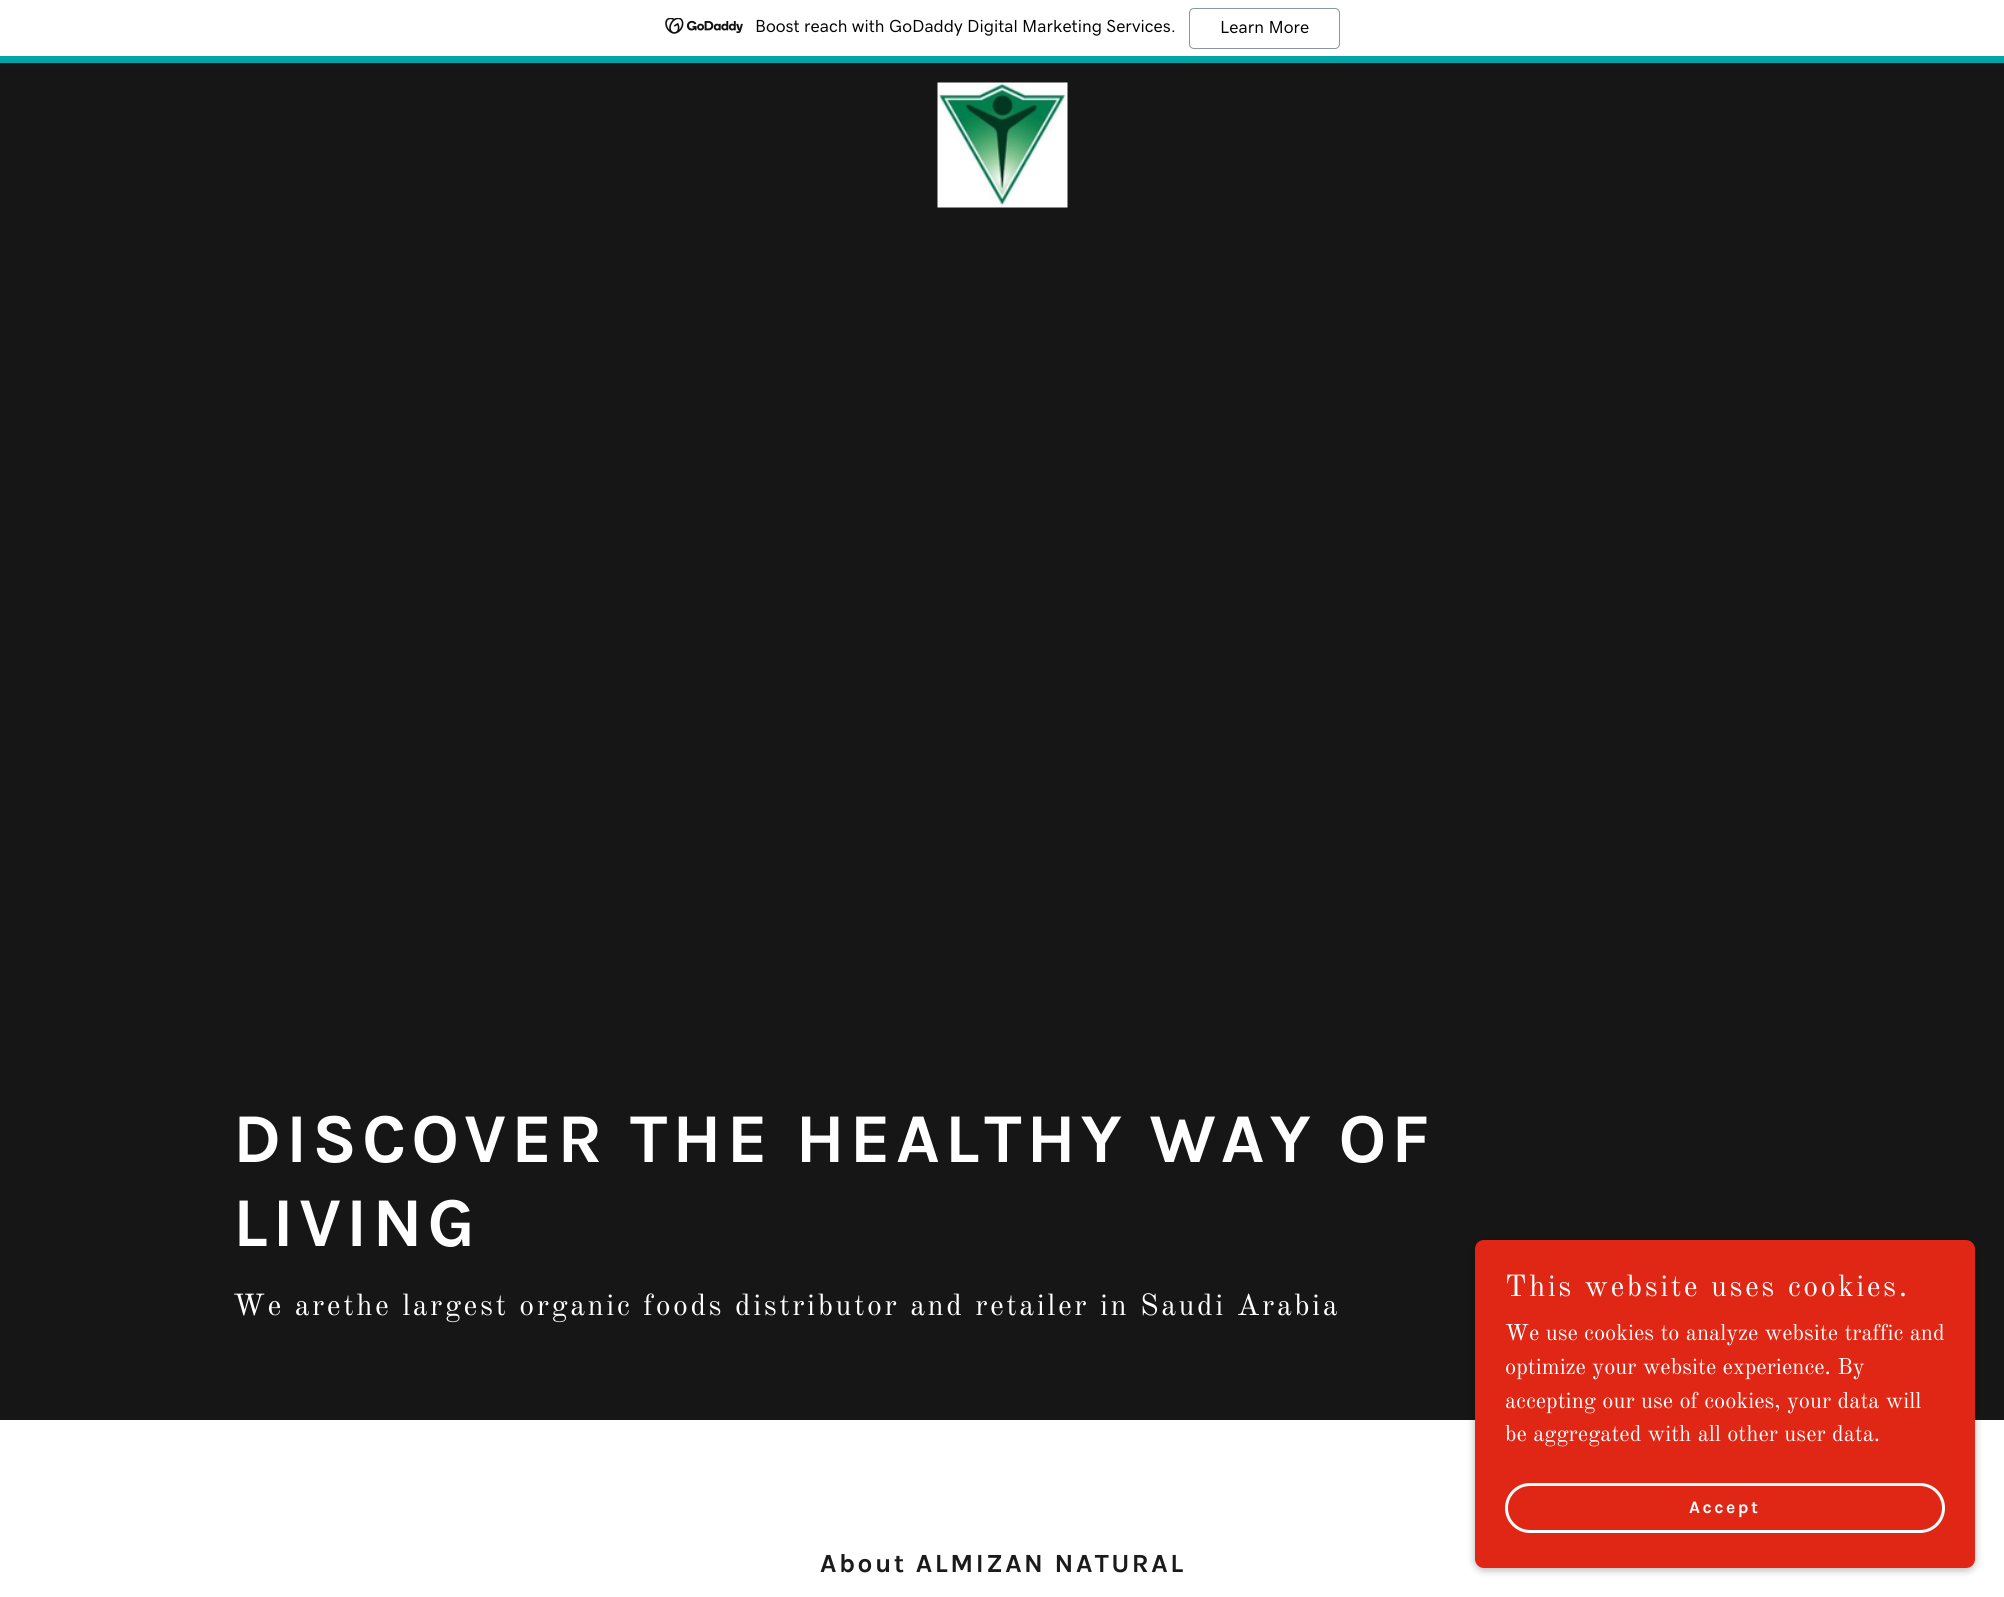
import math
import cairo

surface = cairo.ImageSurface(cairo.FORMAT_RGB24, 2004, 1597)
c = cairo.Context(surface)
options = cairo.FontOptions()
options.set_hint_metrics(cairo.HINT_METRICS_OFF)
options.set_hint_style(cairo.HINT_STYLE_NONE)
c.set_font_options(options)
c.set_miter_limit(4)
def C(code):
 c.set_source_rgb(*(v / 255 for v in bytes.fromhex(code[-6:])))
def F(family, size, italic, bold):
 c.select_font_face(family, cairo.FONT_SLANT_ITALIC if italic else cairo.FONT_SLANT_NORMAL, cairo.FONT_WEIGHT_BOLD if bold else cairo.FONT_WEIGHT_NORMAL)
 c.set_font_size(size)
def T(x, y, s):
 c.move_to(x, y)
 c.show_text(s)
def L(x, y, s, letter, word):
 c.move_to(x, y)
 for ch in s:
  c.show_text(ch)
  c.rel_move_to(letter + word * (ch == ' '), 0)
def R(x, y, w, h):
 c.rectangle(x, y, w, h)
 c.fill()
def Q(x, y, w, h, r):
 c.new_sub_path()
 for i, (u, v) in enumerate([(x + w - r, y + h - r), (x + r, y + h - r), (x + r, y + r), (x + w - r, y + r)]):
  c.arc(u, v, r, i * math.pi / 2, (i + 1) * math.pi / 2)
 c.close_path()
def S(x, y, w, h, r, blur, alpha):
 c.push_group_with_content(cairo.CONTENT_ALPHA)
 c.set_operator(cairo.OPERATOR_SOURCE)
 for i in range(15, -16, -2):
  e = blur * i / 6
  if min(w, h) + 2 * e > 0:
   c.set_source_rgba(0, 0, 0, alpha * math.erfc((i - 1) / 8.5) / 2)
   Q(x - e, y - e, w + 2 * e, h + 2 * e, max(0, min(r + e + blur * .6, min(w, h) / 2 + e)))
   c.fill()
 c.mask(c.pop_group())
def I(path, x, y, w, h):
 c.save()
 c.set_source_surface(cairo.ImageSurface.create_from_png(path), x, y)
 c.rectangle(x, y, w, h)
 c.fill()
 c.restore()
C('161616')
c.paint()
C('ffffff')
R(0,0,2004,56)
C('00a4a6')
R(0,56,2004,7)
I('1.png',665,18,78,16)
F('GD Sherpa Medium',17.5,0,0)
C('000000')
T(755,32,'Boost reach with GoDaddy Digital Marketing Services.')
Q(1189.5,8.5,150,40,4.5)
C('8995a9')
c.set_line_width(1)
c.stroke()
C('000000')
T(1220,33,'Learn More')
I('2.png',937,82,131,126)
F('Karla',70,0,1)
C('ffffff')
L(233,1162,'DISCOVER THE HEALTHY WAY OF',5,0)
L(233,1246,'LIVING',5,0)
F('Old Standard TT',30,0,0)
L(233,1315,'We arethe largest organic foods distributor and retailer in Saudi Arabia',2.5,0)
R(0,1420,2004,177)
C('000000')
S(1475,1243,500,327,9,4,.3)
C('e02614')
Q(1475,1240,500,328,9)
c.fill()
C('ffffff')
L(1505,1296,'This website uses cookies.',2.5,0)
F('Old Standard TT',22.5,0,0)
T(1505,1340,'We use cookies to analyze website traffic and')
T(1505,1374,'optimize your website experience. By')
T(1505,1408,'accepting our use of cookies, your data will')
T(1505,1441,'be aggregated with all other user data.')
Q(1506.5,1484.5,437,47,23.5)
c.set_line_width(3)
c.stroke()
F('Karla',17.5,0,1)
L(1689,1513,'Accept',2.5,0)
F('Karla',26.25,0,1)
C('1b1b1b')
L(820,1572,'About ALMIZAN NATURAL',2.5,0)
surface.write_to_png('o.png')
